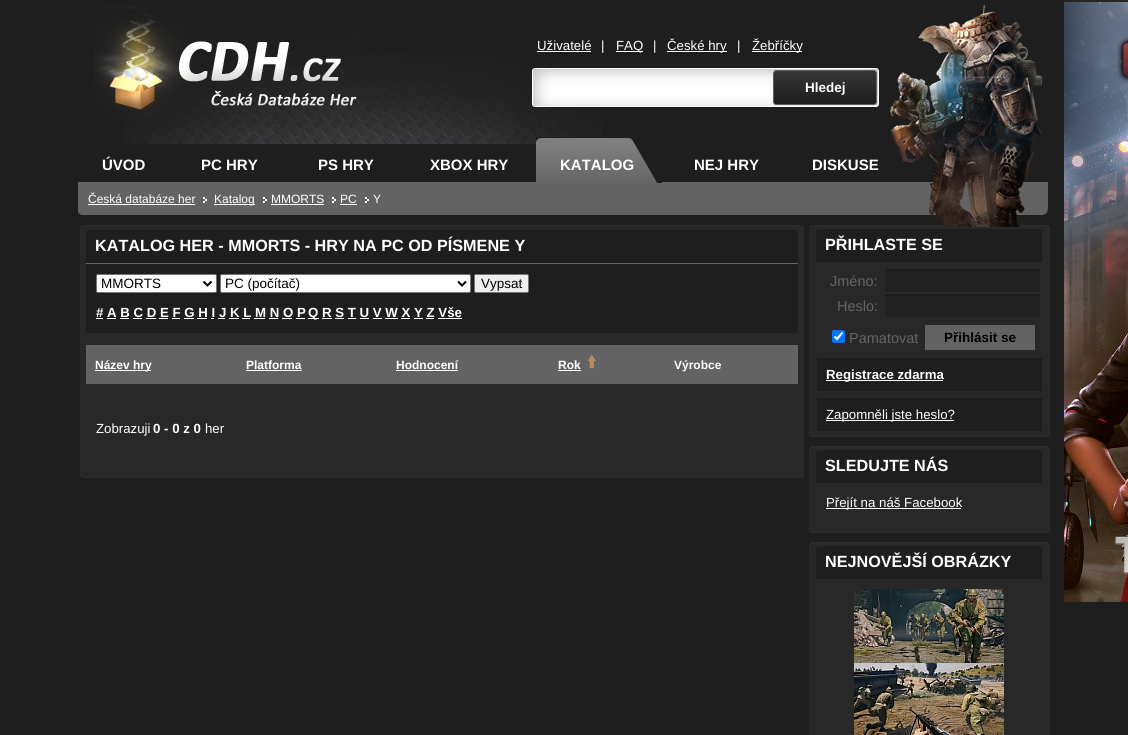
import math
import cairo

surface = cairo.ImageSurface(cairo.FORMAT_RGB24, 1128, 735)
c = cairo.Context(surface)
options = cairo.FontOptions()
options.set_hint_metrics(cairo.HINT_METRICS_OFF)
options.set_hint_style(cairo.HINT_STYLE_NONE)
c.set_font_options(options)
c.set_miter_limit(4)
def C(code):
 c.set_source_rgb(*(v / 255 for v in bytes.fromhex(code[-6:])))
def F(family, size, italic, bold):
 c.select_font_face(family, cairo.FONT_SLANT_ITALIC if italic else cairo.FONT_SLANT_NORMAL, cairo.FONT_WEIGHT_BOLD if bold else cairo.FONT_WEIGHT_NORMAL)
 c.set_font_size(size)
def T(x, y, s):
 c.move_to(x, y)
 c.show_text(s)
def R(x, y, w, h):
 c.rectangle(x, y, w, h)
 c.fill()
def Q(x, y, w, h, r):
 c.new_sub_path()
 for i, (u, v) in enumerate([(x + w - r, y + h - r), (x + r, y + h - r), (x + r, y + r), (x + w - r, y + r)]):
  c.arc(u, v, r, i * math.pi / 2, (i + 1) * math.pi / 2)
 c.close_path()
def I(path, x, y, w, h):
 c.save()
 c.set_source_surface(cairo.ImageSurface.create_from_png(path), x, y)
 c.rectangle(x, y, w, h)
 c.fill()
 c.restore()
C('1e1e1e')
c.paint()
I('1.png',125,54,477,90)
I('2.png',94,5,268,114)
F('Liberation Sans',13.25,0,0)
C('ffffff')
T(537,50,'Uživatelé')
R(537,51,54,1)
T(601,50,'|')
R(616,51,27,1)
T(616,50,'FAQ')
T(653,50,'|')
R(667,51,60,1)
T(667,50,'České hry')
T(737,50,'|')
R(752,51,50,1)
T(752,50,'Žebříčky')
I('3.png',532,68,241,39)
I('4.png',773,68,106,39)
F('Liberation Sans',13.5,0,1)
T(805,92,'Hledej')
F('Liberation Sans',15,0,1)
T(102,170,'ÚVOD')
T(201,170,'PC HRY')
T(318,170,'PS HRY')
T(430,170,'XBOX HRY')
C('636363')
R(78,182,970,27)
I('5.png',536,137,126,46)
C('ffffff')
T(560,170,'KATALOG')
T(694,170,'NEJ HRY')
T(812,170,'DISKUSE')
I('6.png',78,209,970,7)
F('Liberation Sans',12,0,0)
T(88,203,'Česká databáze her')
R(88,204,107,1)
I('7.png',203,197,4,6)
R(214,204,41,1)
T(214,203,'Katalog')
I('7.png',263,197,4,6)
T(271,203,'MMORTS')
R(271,204,53,1)
I('7.png',332,197,4,6)
T(340,203,'PC')
R(340,204,17,1)
I('7.png',365,197,4,6)
T(373,203,'Y')
I('14.png',809,225,241,4)
I('8.png',890,5,152,222)
I('9.png',80,225,724,5)
C('282828')
R(80,230,724,243)
C('1e1e1e')
R(86,230,712,33)
I('10.png',86,230,2,2)
I('11.png',796,230,2,2)
F('Liberation Sans',16.2,0,1)
C('ffffff')
T(95,251,'KATALOG HER - MMORTS - HRY NA PC OD PÍSMENE Y')
C('1e1e1e')
R(86,264,712,69)
C('636363')
R(86,263,712,1)
C('ffffff')
Q(96.5,274.5,120,18,1.5)
c.fill_preserve()
C('767676')
c.set_line_width(1)
c.stroke()
c.new_path()
c.move_to(203.5,281.5)
c.line_to(207.5,285.5)
c.line_to(211.5,281.5)
C('000000')
c.set_line_width(2)
c.stroke()
F('Liberation Sans',13.5,0,0)
T(101,288,'MMORTS')
C('ffffff')
Q(220.5,274.5,250,18,1.5)
c.fill_preserve()
C('767676')
c.set_line_width(1)
c.stroke()
c.new_path()
c.move_to(458,281.5)
c.line_to(462,285.5)
c.line_to(466,281.5)
C('000000')
c.set_line_width(2)
c.stroke()
T(225,288,'PC (počítač)')
C('efefef')
Q(474.5,274.5,54,18,1.5)
c.fill_preserve()
C('767676')
c.set_line_width(1)
c.stroke()
C('000000')
T(481,288,'Vypsat')
F('Liberation Sans',13.25,0,1)
C('ffffff')
T(96,317,'# A B C D E F G H I J K L M N O P')
R(96,318,7,1)
R(308,318,11,1)
T(308,317,'Q R S T U V W X Y Z Vše')
R(107,318,9,1)
R(120,318,9,1)
R(133,318,9,1)
R(146,318,10,1)
R(159,318,9,1)
R(172,318,8,1)
R(184,318,10,1)
R(197,318,10,1)
R(211,318,3,1)
R(218,318,7,1)
R(229,318,10,1)
R(242,318,8,1)
R(254,318,11,1)
R(269,318,9,1)
R(282,318,10,1)
R(296,318,9,1)
R(322,318,10,1)
R(335,318,9,1)
R(348,318,8,1)
R(360,318,9,1)
R(373,318,9,1)
R(385,318,13,1)
R(401,318,9,1)
R(414,318,9,1)
R(426,318,8,1)
R(438,318,24,1)
C('636363')
R(86,345,712,39)
C('ffffff')
R(95,370,56,1)
F('Liberation Sans',12,0,1)
T(95,369,'Název hry')
T(246,369,'Platforma')
R(246,370,56,1)
T(396,369,'Hodnocení')
R(396,370,62,1)
T(558,369,'Rok')
R(558,370,23,1)
I('12.png',587,354,9,15)
T(674,369,'Výrobce')
F('Liberation Sans',13.25,0,0)
T(96,433,'Zobrazuji')
F('Liberation Sans',13.25,0,1)
T(153,433,'0 - 0 z 0')
F('Liberation Sans',13.25,0,0)
T(205,433,'her')
I('13.png',80,473,724,5)
C('282828')
R(809,229,241,203)
C('1e1e1e')
R(816,229,226,33)
I('10.png',816,229,2,2)
I('11.png',1040,229,2,2)
F('Liberation Sans',16.2,0,1)
C('ffffff')
T(825,250,'PŘIHLASTE SE')
F('Liberation Sans',14.5,0,0)
C('636363')
T(830,286,'Jméno:')
C('212121')
R(885,271,155,21)
C('1c1c1c')
R(885,269,155,2)
C('636363')
T(837,311,'Heslo:')
C('212121')
R(885,296,155,21)
C('1c1c1c')
R(885,294,155,2)
C('0075ff')
Q(832,330,13,13,2)
c.fill()
c.new_path()
c.move_to(834.5,336.5)
c.line_to(837,339)
c.line_to(842.5,332.5)
C('ffffff')
c.set_line_width(2.1)
c.stroke()
C('636363')
T(849,343,'Pamatovat')
R(925,325,110,25)
F('Liberation Sans',13.5,0,1)
C('000000')
T(944,342,'Přihlásit se')
C('1e1e1e')
R(817,358,225,33)
C('ffffff')
R(826,380,117,1)
F('Liberation Sans',13.25,0,1)
T(826,379,'Registrace zdarma')
C('1e1e1e')
R(817,398,225,33)
C('ffffff')
R(826,420,128,1)
F('Liberation Sans',13.25,0,0)
T(826,419,'Zapomněli jste heslo?')
I('15.png',809,432,241,5)
I('14.png',809,446,241,4)
C('282828')
R(809,450,241,78)
C('1e1e1e')
R(816,450,226,33)
I('10.png',816,450,2,2)
I('11.png',1040,450,2,2)
F('Liberation Sans',16.2,0,1)
C('ffffff')
T(825,471,'SLEDUJTE NÁS')
R(826,508,135,1)
F('Liberation Sans',13.25,0,0)
T(826,507,'Přejít na náš Facebook')
I('15.png',809,528,241,5)
I('14.png',809,542,241,4)
C('282828')
R(809,546,241,189)
C('1e1e1e')
R(816,546,226,33)
I('10.png',816,546,2,2)
I('11.png',1040,546,2,2)
F('Liberation Sans',16.2,0,1)
C('ffffff')
T(825,567,'NEJNOVĚJŠÍ OBRÁZKY')
I('16.png',854,589,150,74)
I('17.png',854,663,150,72)
C('262626')
R(1064,0,64,2)
I('18.png',1064,2,64,600)
surface.write_to_png('o.png')
